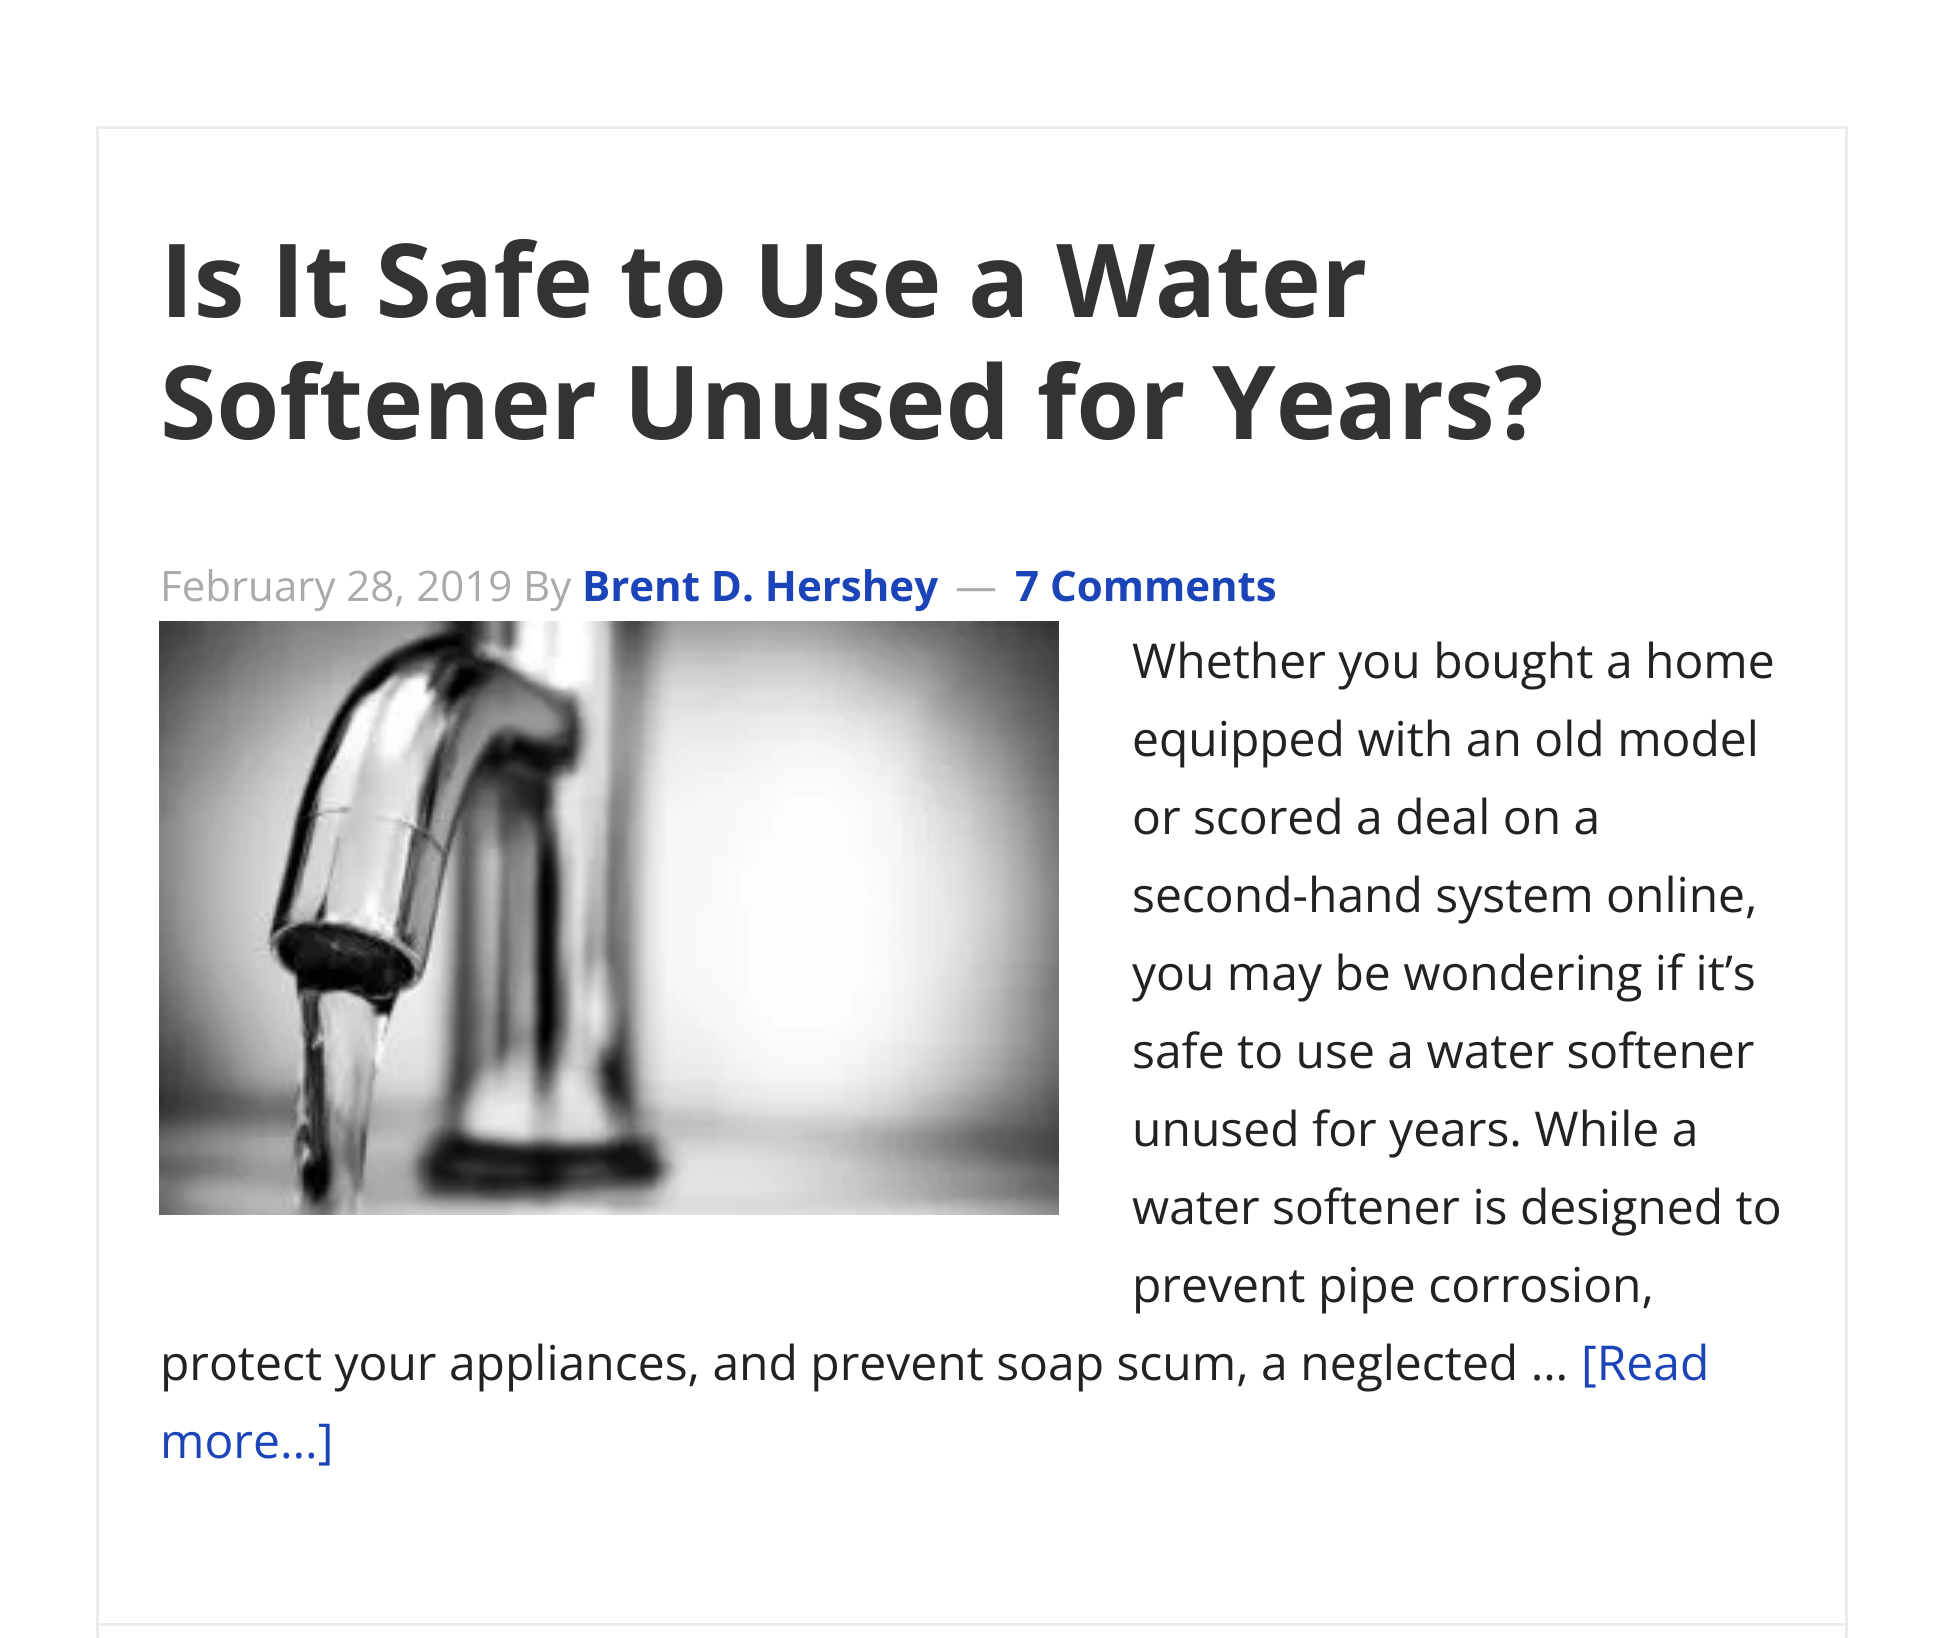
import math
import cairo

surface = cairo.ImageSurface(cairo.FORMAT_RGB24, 1944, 1638)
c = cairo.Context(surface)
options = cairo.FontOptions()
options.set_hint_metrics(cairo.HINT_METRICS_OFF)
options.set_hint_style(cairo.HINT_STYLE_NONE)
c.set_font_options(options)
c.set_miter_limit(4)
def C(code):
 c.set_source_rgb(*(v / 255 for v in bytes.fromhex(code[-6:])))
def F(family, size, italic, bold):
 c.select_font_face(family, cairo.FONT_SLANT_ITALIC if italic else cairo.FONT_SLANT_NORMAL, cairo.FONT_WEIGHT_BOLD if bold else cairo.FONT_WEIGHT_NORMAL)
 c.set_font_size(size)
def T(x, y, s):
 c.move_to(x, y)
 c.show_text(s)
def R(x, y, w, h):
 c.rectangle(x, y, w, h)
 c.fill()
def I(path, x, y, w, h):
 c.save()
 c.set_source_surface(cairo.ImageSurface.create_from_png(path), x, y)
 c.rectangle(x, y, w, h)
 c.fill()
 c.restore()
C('ffffff')
c.paint()
c.rectangle(97.5,127.5,1749,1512)
C('ececec')
c.set_line_width(3)
c.stroke()
F('Open Sans',102,0,1)
C('333333')
T(160,317,'Is It Safe to Use a Water')
T(160,439,'Softener Unused for Years?')
F('Open Sans',42,0,0)
C('aaaaaa')
T(160,601,'February 28, 2019 By')
F('Open Sans',42,0,1)
C('1b44b9')
T(582,601,'Brent D. Hershey')
F('Open Sans',42,0,0)
C('aaaaaa')
T(955,601,'—')
F('Open Sans',42,0,1)
C('1b44b9')
T(1015,601,'7 Comments')
I('1.png',159,621,900,594)
F('Open Sans',48,0,0)
C('222222')
T(1132,678,'Whether you bought a home')
T(1132,756,'equipped with an old model')
T(1132,834,'or scored a deal on a')
T(1132,912,'second-hand system online,')
T(1132,990,'you may be wondering if it’s')
T(1132,1068,'safe to use a water softener')
T(1132,1146,'unused for years. While a')
T(1132,1224,'water softener is designed to')
T(1132,1302,'prevent pipe corrosion,')
T(160,1380,'protect your appliances, and prevent soap scum, a neglected …')
C('1b44b9')
T(1581,1380,'[Read')
T(160,1458,'more...]')
C('ececec')
R(99,1623,1746,3)
surface.write_to_png('o.png')
